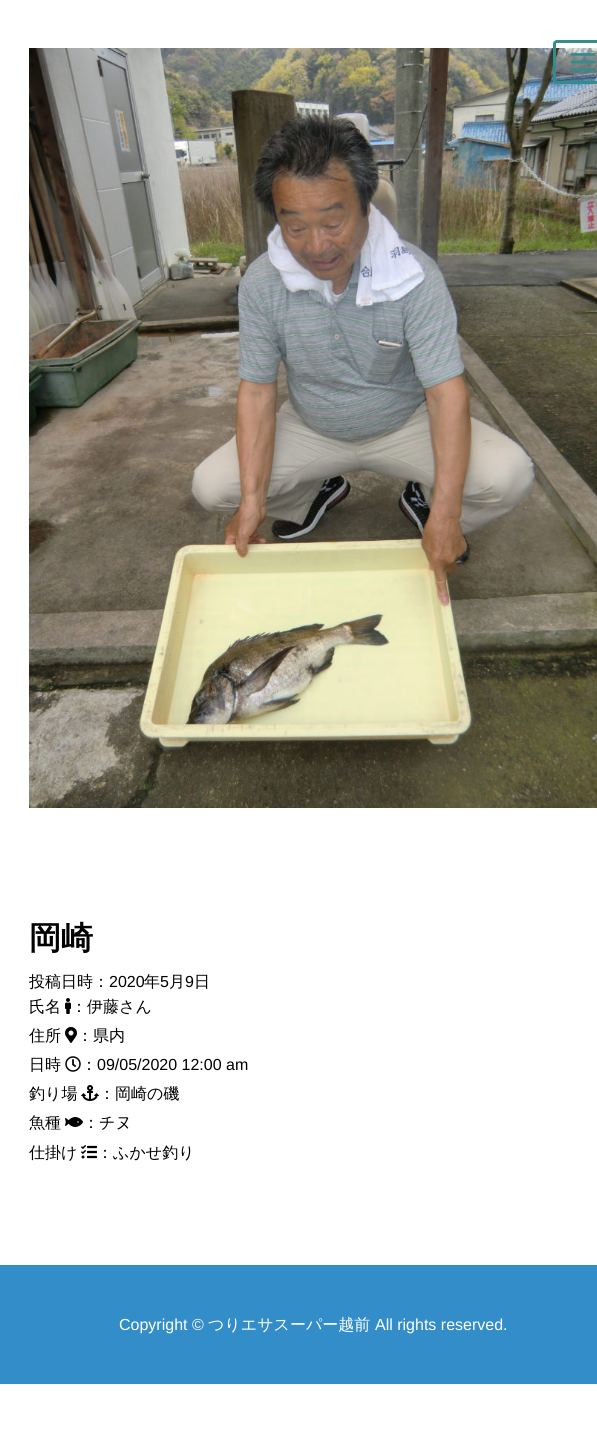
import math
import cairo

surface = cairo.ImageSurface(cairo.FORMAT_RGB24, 597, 1446)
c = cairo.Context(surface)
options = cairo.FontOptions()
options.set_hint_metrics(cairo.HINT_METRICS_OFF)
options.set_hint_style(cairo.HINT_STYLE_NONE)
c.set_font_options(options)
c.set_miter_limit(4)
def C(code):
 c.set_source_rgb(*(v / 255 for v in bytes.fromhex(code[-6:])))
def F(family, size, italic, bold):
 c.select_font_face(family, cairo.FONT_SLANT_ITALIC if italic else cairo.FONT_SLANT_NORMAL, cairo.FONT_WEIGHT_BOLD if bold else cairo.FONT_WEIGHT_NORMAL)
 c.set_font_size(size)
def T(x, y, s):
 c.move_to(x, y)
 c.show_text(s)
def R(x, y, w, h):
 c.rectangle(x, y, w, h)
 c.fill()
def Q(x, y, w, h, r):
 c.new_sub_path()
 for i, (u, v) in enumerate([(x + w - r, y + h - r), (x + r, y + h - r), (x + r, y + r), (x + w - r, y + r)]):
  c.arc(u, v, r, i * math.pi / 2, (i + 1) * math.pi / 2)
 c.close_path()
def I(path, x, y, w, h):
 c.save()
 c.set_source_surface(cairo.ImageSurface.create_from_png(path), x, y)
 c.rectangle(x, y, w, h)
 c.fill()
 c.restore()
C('ffffff')
c.paint()
I('2.png',29,48,568,760)
Q(554.5,41.5,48,41,2.5)
C('338d8d')
c.set_line_width(3)
c.stroke()
I('1.png',570,53,26,18)
F('WenQuanYi Zen Hei',32,0,1)
C('000000')
T(29,949,'岡崎')
F('WenQuanYi Zen Hei Medium',16,0,0)
T(29,987,'投稿日時：')
F('Liberation Sans',16,0,0)
T(109,987,'2020')
F('WenQuanYi Zen Hei Medium',16,0,0)
T(144,987,'年')
F('Liberation Sans',16,0,0)
T(160,987,'5')
F('WenQuanYi Zen Hei Medium',16,0,0)
T(169,987,'月')
F('Liberation Sans',16,0,0)
T(185,987,'9')
F('WenQuanYi Zen Hei Medium',16,0,0)
T(194,987,'日')
T(29,1012,'氏名')
I('3.png',65,998,6,16)
T(71,1012,'：伊藤さん')
T(29,1041,'住所')
I('4.png',65,1027,12,16)
T(77,1041,'：県内')
T(29,1070,'日時')
I('5.png',65,1056,16,16)
T(81,1070,'：')
F('Liberation Sans',16,0,0)
T(97,1070,'09/05/2020 12:00 am')
F('WenQuanYi Zen Hei Medium',16,0,0)
T(29,1099,'釣り場')
I('6.png',81,1085,18,16)
T(99,1099,'：岡崎の磯')
T(29,1128,'魚種')
I('7.png',65,1117,18,10)
T(83,1128,'：チヌ')
T(29,1158,'仕掛け')
I('8.png',81,1145,16,14)
T(97,1158,'：ふかせ釣り')
C('338dc9')
R(0,1265,597,119)
F('Liberation Sans',16,0,0)
C('ffffff')
T(119,1330,'Copyright ©')
F('WenQuanYi Zen Hei Medium',16,0,0)
T(208,1330,'つりエサスーパー越前')
F('Liberation Sans',16,0,0)
T(375,1330,'All rights reserved.')
surface.write_to_png('o.png')
